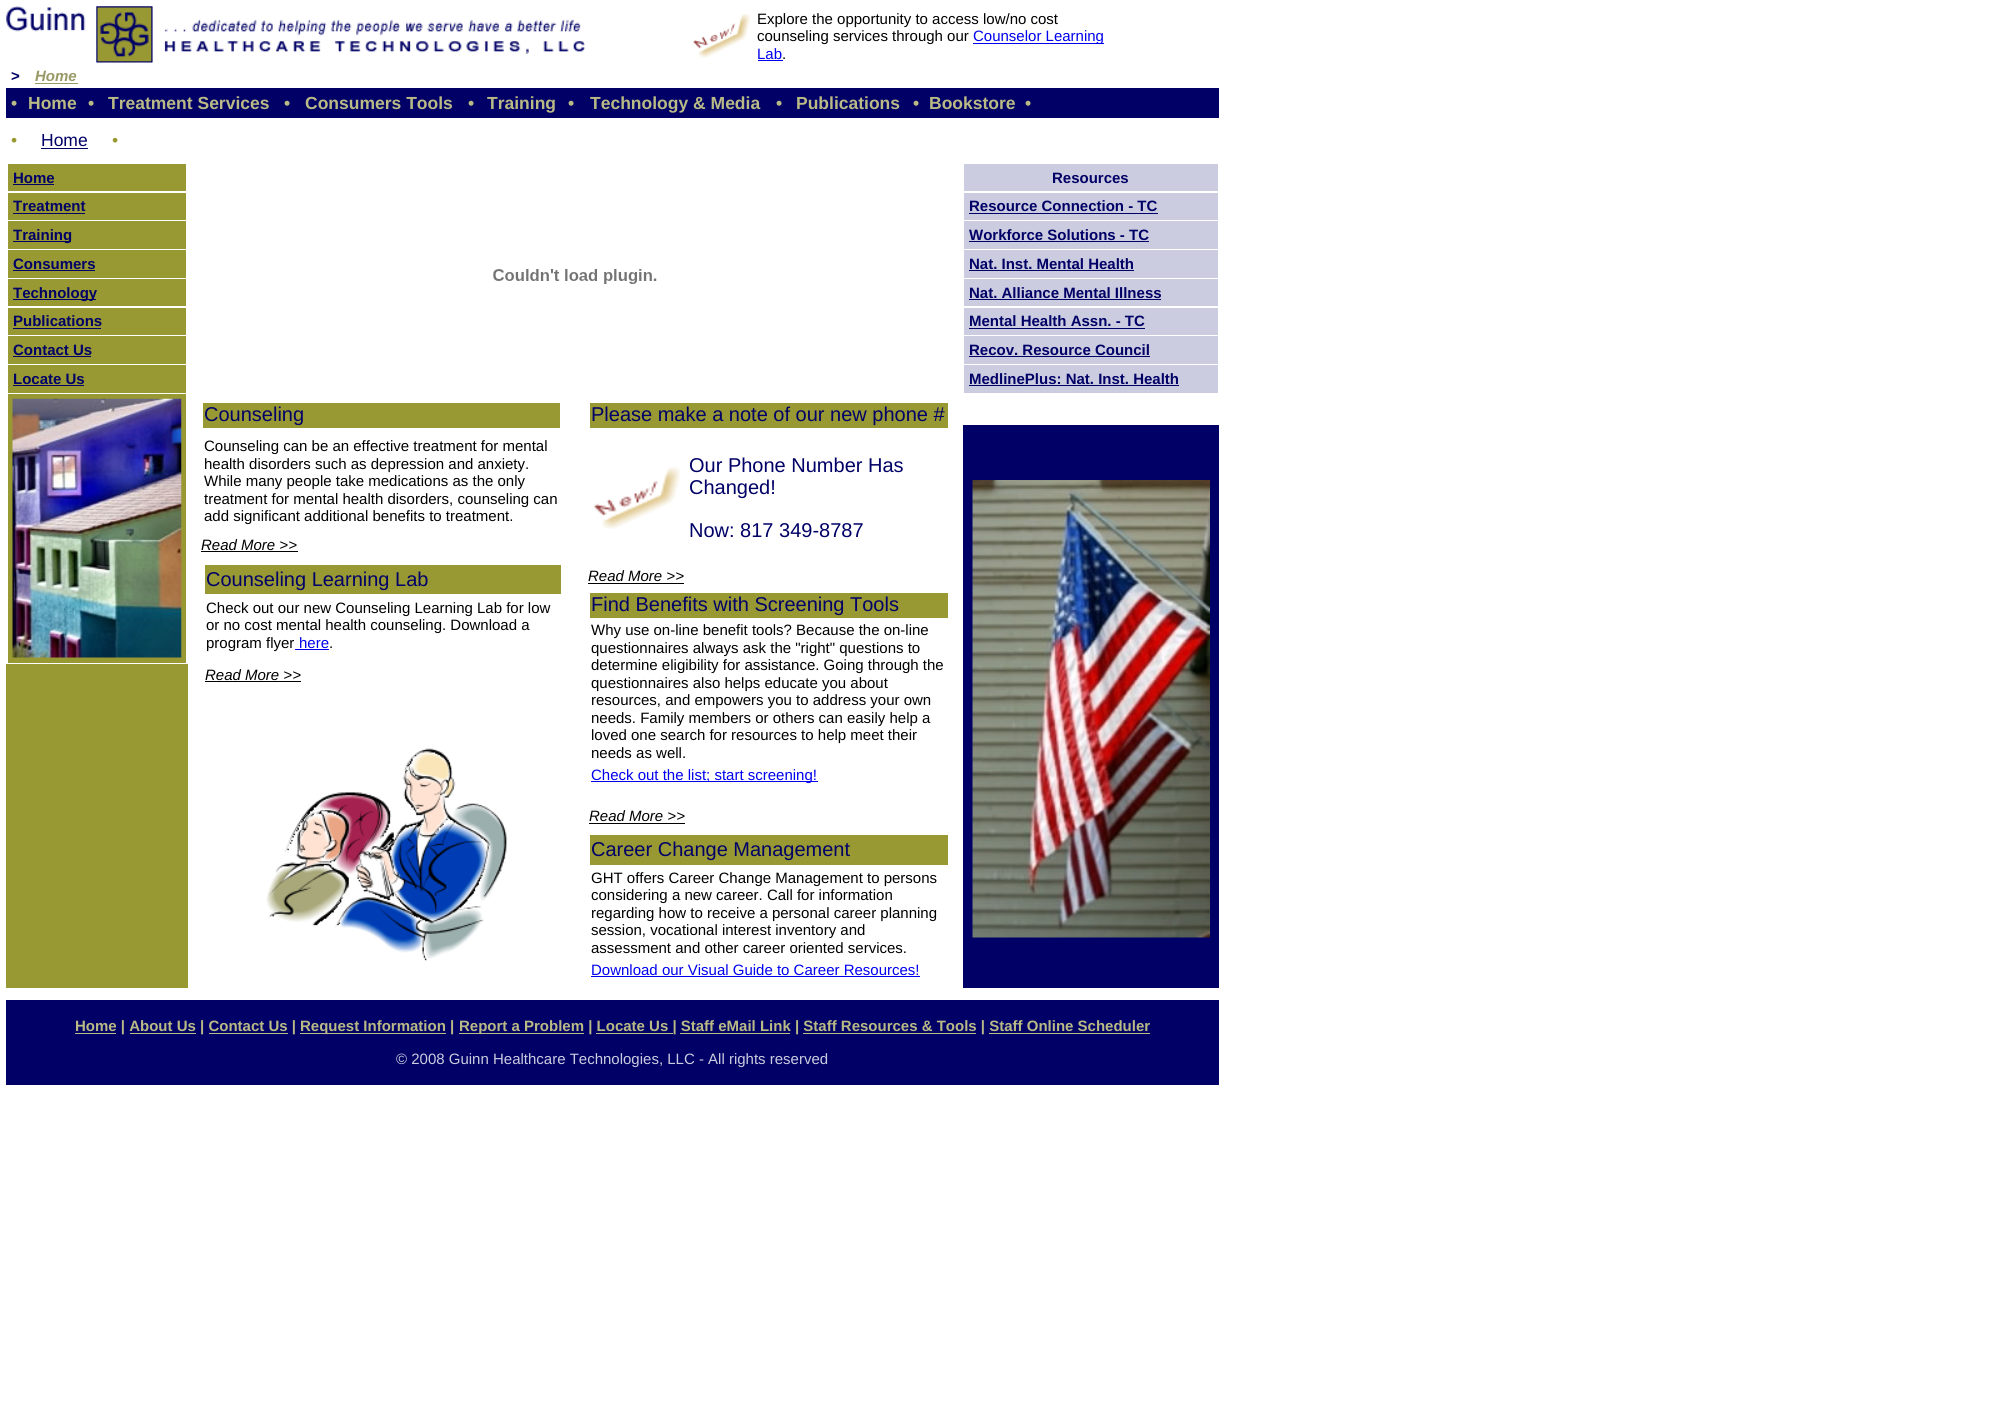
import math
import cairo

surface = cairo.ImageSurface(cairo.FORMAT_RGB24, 1994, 1425)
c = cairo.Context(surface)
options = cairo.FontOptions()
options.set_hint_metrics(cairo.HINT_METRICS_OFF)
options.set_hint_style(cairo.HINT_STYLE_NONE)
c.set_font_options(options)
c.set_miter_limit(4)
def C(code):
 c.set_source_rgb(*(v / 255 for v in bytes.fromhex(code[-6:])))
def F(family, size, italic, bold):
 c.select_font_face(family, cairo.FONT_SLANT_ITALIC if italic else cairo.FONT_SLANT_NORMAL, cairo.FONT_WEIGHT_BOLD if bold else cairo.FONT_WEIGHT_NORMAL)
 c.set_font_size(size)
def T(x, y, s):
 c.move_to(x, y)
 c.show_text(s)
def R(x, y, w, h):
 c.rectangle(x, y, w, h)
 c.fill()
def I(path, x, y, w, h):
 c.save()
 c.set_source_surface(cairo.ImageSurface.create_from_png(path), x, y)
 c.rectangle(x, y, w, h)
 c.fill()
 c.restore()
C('ffffff')
c.paint()
I('1.png',6,6,579,57)
I('2.png',692,14,58,44)
F('Liberation Sans',15,0,0)
C('000000')
T(757,24,'Explore the opportunity to access low/no cost')
T(757,41,'counseling services through our')
C('0000ee')
R(973,43,131,1)
T(973,41,'Counselor Learning')
T(757,59,'Lab')
R(758,60,25,1)
C('000000')
T(782,59,'.')
F('Liberation Sans',15,0,1)
C('000066')
T(11,81,'>')
F('Liberation Sans',15,1,1)
C('999966')
T(35,81,'Home')
R(35,83,43,1)
C('000066')
R(6,88,1213,30)
F('Liberation Sans',17.5,0,1)
C('baba86')
T(11,109,'•')
T(28,109,'Home')
T(88,109,'•')
T(108,109,'Treatment Services')
T(284,109,'•')
T(305,109,'Consumers Tools')
T(468,109,'•')
T(487,109,'Training')
T(568,109,'•')
T(590,109,'Technology & Media')
T(776,109,'•')
T(796,109,'Publications')
T(913,109,'•')
T(929,109,'Bookstore')
T(1025,109,'•')
F('Liberation Sans',17.5,0,0)
C('999933')
T(11,146,'•')
C('000066')
T(41,146,'Home')
R(41,148,47,1)
C('999933')
T(112,146,'•')
R(6,664,182,324)
R(8,164,178,27)
F('Liberation Sans',15,0,1)
C('000066')
T(13,183,'Home')
R(13,184,41,1)
C('999933')
R(8,193,178,27)
C('000066')
T(13,211,'Treatment')
R(13,213,72,1)
C('999933')
R(8,221,178,28)
C('000066')
R(13,241,58,1)
T(13,240,'Training')
C('999933')
R(8,250,178,28)
C('000066')
T(13,269,'Consumers')
R(13,270,82,1)
C('999933')
R(8,279,178,27)
C('000066')
R(13,299,83,1)
T(13,298,'Technology')
C('999933')
R(8,308,178,27)
C('000066')
T(13,326,'Publications')
R(13,328,88,1)
C('999933')
R(8,336,178,28)
C('000066')
T(13,355,'Contact Us')
R(13,356,78,1)
C('999933')
R(8,365,178,28)
C('000066')
T(13,384,'Locate Us')
R(13,385,71,1)
C('999933')
R(8,394,178,269)
I('3.png',12,398,170,260)
I('4.png',493,269,164,15)
C('cccce0')
R(964,164,254,27)
C('000066')
T(1052,183,'Resources')
C('cccce0')
R(964,193,254,27)
C('000066')
T(969,211,'Resource Connection - TC')
R(969,213,189,1)
C('cccce0')
R(964,221,254,28)
C('000066')
T(969,240,'Workforce Solutions - TC')
R(969,241,180,1)
C('cccce0')
R(964,250,254,28)
C('000066')
T(969,269,'Nat. Inst. Mental Health')
R(969,270,165,1)
C('cccce0')
R(964,279,254,27)
C('000066')
T(969,298,'Nat. Alliance Mental Illness')
R(969,299,192,1)
C('cccce0')
R(964,308,254,27)
C('000066')
T(969,326,'Mental Health Assn. - TC')
R(969,328,176,1)
C('cccce0')
R(964,336,254,28)
C('000066')
T(969,355,'Recov. Resource Council')
R(969,356,181,1)
C('cccce0')
R(964,365,254,28)
C('000066')
T(969,384,'MedlinePlus: Nat. Inst. Health')
R(969,385,210,1)
C('999933')
R(203,403,357,25)
F('Liberation Sans',20,0,0)
C('000066')
T(204,421,'Counseling')
F('Liberation Sans',15,0,0)
C('000000')
T(204,451,'Counseling can be an effective treatment for mental')
T(204,469,'health disorders such as depression and anxiety.')
T(204,486,'While many people take medications as the only')
T(204,504,'treatment for mental health disorders, counseling can')
T(204,521,'add significant additional benefits to treatment.')
C('999933')
R(590,403,358,25)
F('Liberation Sans',20,0,0)
C('000066')
T(591,421,'Please make a note of our new phone #')
I('5.png',593,467,87,62)
T(689,472,'Our Phone Number Has')
T(689,494,'Changed!')
T(689,537,'Now: 817 349-8787')
R(963,425,256,563)
F('Liberation Sans',15,1,0)
C('000000')
T(201,550,'Read More >>')
R(201,551,97,1)
I('6.png',972,480,238,458)
C('999933')
R(205,565,356,29)
F('Liberation Sans',20,0,0)
C('000066')
T(206,586,'Counseling Learning Lab')
F('Liberation Sans',15,0,0)
C('000000')
T(206,613,'Check out our new Counseling Learning Lab for low')
T(206,630,'or no cost mental health counseling. Download a')
T(206,648,'program flyer')
C('0000ee')
T(299,648,'here')
R(295,649,34,1)
C('000000')
T(329,648,'.')
F('Liberation Sans',15,1,0)
T(588,581,'Read More >>')
R(588,583,96,1)
T(205,680,'Read More >>')
R(205,681,96,1)
C('999933')
R(590,593,358,25)
F('Liberation Sans',20,0,0)
C('000066')
T(591,611,'Find Benefits with Screening Tools')
F('Liberation Sans',15,0,0)
C('000000')
T(591,635,'Why use on-line benefit tools? Because the on-line')
T(591,653,'questionnaires always ask the "right" questions to')
T(591,670,'determine eligibility for assistance. Going through the')
T(591,688,'questionnaires also helps educate you about')
T(591,705,'resources, and empowers you to address your own')
T(591,723,'needs. Family members or others can easily help a')
T(591,740,'loved one search for resources to help meet their')
T(591,758,'needs as well.')
C('0000ee')
R(591,781,227,1)
T(591,780,'Check out the list; start screening!')
I('7.png',266,748,242,213)
F('Liberation Sans',15,1,0)
C('000000')
T(589,821,'Read More >>')
R(589,823,96,1)
C('999933')
R(590,835,358,30)
F('Liberation Sans',20,0,0)
C('000066')
T(591,856,'Career Change Management')
F('Liberation Sans',15,0,0)
C('000000')
T(591,883,'GHT offers Career Change Management to persons')
T(591,900,'considering a new career. Call for information')
T(591,918,'regarding how to receive a personal career planning')
T(591,935,'session, vocational interest inventory and')
T(591,953,'assessment and other career oriented services.')
C('0000ee')
T(591,975,'Download our Visual Guide to Career Resources!')
R(591,976,329,1)
C('000066')
R(6,1000,1213,85)
C('baba86')
R(75,1033,41,1)
F('Liberation Sans',15,0,1)
T(75,1031,'Home | About Us | Contact Us |')
R(300,1033,146,1)
T(300,1031,'Request Information |')
R(459,1033,125,1)
T(459,1031,'Report a Problem | Locate Us | Staff eMail Link | Staff Resources & Tools | Staff Online Scheduler')
R(130,1033,66,1)
R(209,1033,79,1)
R(596,1033,77,1)
R(680,1033,110,1)
R(803,1033,173,1)
R(989,1033,161,1)
F('Liberation Sans',15,0,0)
C('cccce0')
T(396,1064,'© 2008 Guinn Healthcare Technologies, LLC - All rights reserved')
surface.write_to_png('o.png')
